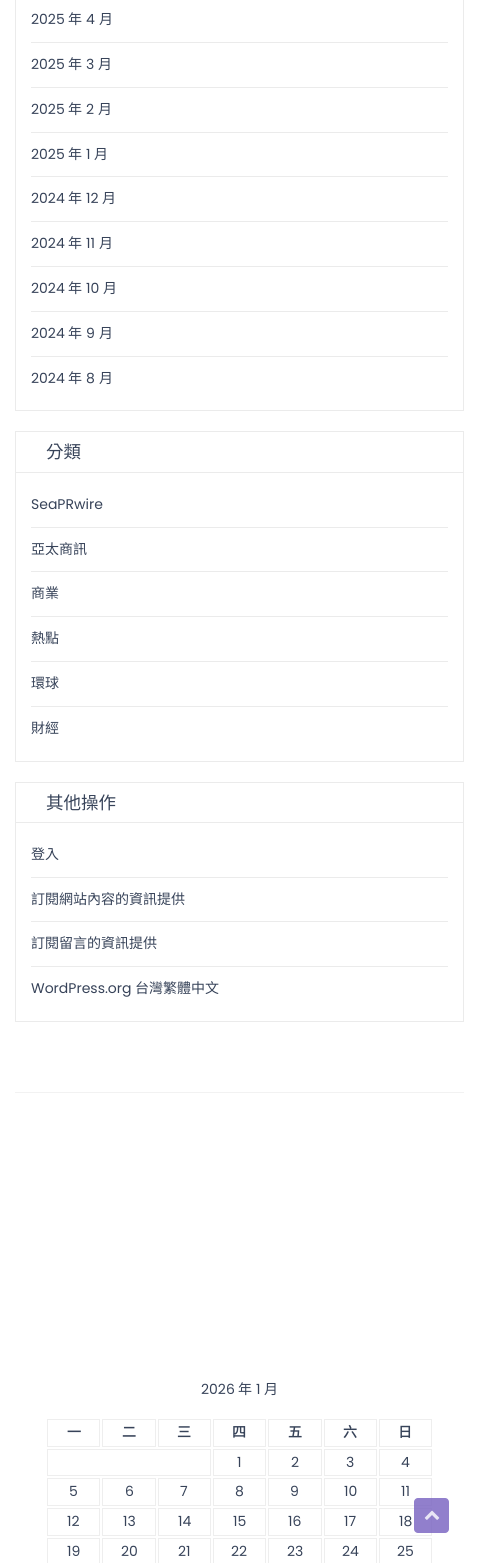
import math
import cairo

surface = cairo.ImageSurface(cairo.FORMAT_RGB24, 479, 1563)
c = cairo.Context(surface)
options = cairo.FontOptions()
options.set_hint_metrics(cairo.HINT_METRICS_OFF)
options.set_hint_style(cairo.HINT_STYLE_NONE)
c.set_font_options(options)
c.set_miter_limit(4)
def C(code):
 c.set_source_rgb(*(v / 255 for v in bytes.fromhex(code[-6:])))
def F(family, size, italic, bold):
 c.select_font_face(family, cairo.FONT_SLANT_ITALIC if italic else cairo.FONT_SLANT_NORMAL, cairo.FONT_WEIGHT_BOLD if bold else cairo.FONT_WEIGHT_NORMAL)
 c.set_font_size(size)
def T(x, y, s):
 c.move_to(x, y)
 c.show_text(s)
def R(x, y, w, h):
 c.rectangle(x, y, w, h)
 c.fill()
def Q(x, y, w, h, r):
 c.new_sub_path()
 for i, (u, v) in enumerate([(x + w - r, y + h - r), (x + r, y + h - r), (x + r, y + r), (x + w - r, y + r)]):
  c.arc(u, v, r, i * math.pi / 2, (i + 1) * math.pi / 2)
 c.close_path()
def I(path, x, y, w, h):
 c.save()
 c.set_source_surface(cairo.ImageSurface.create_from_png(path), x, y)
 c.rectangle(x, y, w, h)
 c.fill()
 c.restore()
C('ffffff')
c.paint()
c.rectangle(15.5,-.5,448,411)
C('ebebeb')
c.set_line_width(1)
c.stroke()
R(31,42,417,1)
F('Poppins',14,0,0)
C('374359')
T(31,24,'2025')
F('Noto Sans CJK TC',14,0,0)
T(68,24,'年')
F('Poppins',14,0,0)
T(86,24,'4')
F('Noto Sans CJK TC',14,0,0)
T(99,24,'月')
C('ebebeb')
R(31,87,417,1)
F('Poppins',14,0,0)
C('374359')
T(31,69,'2025')
F('Noto Sans CJK TC',14,0,0)
T(68,69,'年')
F('Poppins',14,0,0)
T(86,69,'3')
F('Noto Sans CJK TC',14,0,0)
T(98,69,'月')
C('ebebeb')
R(31,132,417,1)
F('Poppins',14,0,0)
C('374359')
T(31,114,'2025')
F('Noto Sans CJK TC',14,0,0)
T(68,114,'年')
F('Poppins',14,0,0)
T(86,114,'2')
F('Noto Sans CJK TC',14,0,0)
T(98,114,'月')
C('ebebeb')
R(31,176,417,1)
F('Poppins',14,0,0)
C('374359')
T(31,159,'2025')
F('Noto Sans CJK TC',14,0,0)
T(68,159,'年')
F('Poppins',14,0,0)
T(86,159,'1')
F('Noto Sans CJK TC',14,0,0)
T(94,159,'月')
C('ebebeb')
R(31,221,417,1)
F('Poppins',14,0,0)
C('374359')
T(31,203,'2024')
F('Noto Sans CJK TC',14,0,0)
T(68,203,'年')
F('Poppins',14,0,0)
T(86,203,'12')
F('Noto Sans CJK TC',14,0,0)
T(102,203,'月')
C('ebebeb')
R(31,266,417,1)
F('Poppins',14,0,0)
C('374359')
T(31,248,'2024')
F('Noto Sans CJK TC',14,0,0)
T(68,248,'年')
F('Poppins',14,0,0)
T(86,248,'11')
F('Noto Sans CJK TC',14,0,0)
T(99,248,'月')
C('ebebeb')
R(31,311,417,1)
F('Poppins',14,0,0)
C('374359')
T(31,293,'2024')
F('Noto Sans CJK TC',14,0,0)
T(68,293,'年')
F('Poppins',14,0,0)
T(86,293,'10')
F('Noto Sans CJK TC',14,0,0)
T(103,293,'月')
C('ebebeb')
R(31,356,417,1)
F('Poppins',14,0,0)
C('374359')
T(31,338,'2024')
F('Noto Sans CJK TC',14,0,0)
T(68,338,'年')
F('Poppins',14,0,0)
T(86,338,'9')
F('Noto Sans CJK TC',14,0,0)
T(99,338,'月')
F('Poppins',14,0,0)
T(31,383,'2024')
F('Noto Sans CJK TC',14,0,0)
T(68,383,'年')
F('Poppins',14,0,0)
T(86,383,'8')
F('Noto Sans CJK TC',14,0,0)
T(99,383,'月')
c.rectangle(15.5,431.5,448,330)
C('ebebeb')
c.stroke()
R(16,472,447,1)
F('Noto Sans CJK TC',17.5,0,0)
C('374359')
T(46,458,'分類')
C('ebebeb')
R(31,527,417,1)
F('Poppins',14,0,0)
C('374359')
T(31,509,'SeaPRwire')
C('ebebeb')
R(31,571,417,1)
F('Noto Sans CJK TC',14,0,0)
C('374359')
T(31,554,'亞太商訊')
C('ebebeb')
R(31,616,417,1)
C('374359')
T(31,598,'商業')
C('ebebeb')
R(31,661,417,1)
C('374359')
T(31,643,'熱點')
C('ebebeb')
R(31,706,417,1)
C('374359')
T(31,688,'環球')
T(31,733,'財經')
c.rectangle(15.5,782.5,448,239)
C('ebebeb')
c.stroke()
R(16,822,447,1)
F('Noto Sans CJK TC',17.5,0,0)
C('374359')
T(46,809,'其他操作')
C('ebebeb')
R(31,877,417,1)
F('Noto Sans CJK TC',14,0,0)
C('374359')
T(31,859,'登入')
C('ebebeb')
R(31,921,417,1)
C('374359')
T(31,904,'訂閱網站內容的資訊提供')
C('ebebeb')
R(31,966,417,1)
C('374359')
T(31,948,'訂閱留言的資訊提供')
F('Poppins',14,0,0)
T(31,993,'WordPress.org')
F('Noto Sans CJK TC',14,0,0)
T(135,993,'台灣繁體中文')
C('f2f2f2')
R(15,1092,449,1)
F('Poppins',14,0,0)
C('374359')
T(201,1394,'2026')
F('Noto Sans CJK TC',14,0,0)
T(238,1394,'年')
F('Poppins',14,0,0)
T(256,1394,'1')
F('Noto Sans CJK TC',14,0,0)
T(264,1394,'月')
c.rectangle(47.5,1419.5,52,27)
C('eeeeee')
c.stroke()
F('Noto Sans CJK TC',14,0,1)
C('374359')
T(67,1437,'一')
c.rectangle(102.5,1419.5,53,27)
C('eeeeee')
c.stroke()
C('374359')
T(122,1437,'二')
c.rectangle(158.5,1419.5,52,27)
C('eeeeee')
c.stroke()
C('374359')
T(177,1437,'三')
c.rectangle(213.5,1419.5,52,27)
C('eeeeee')
c.stroke()
C('374359')
T(232,1437,'四')
c.rectangle(268.5,1419.5,53,27)
C('eeeeee')
c.stroke()
C('374359')
T(288,1437,'五')
c.rectangle(324.5,1419.5,52,27)
C('eeeeee')
c.stroke()
C('374359')
T(343,1437,'六')
c.rectangle(379.5,1419.5,52,27)
C('eeeeee')
c.stroke()
C('374359')
T(398,1437,'日')
c.rectangle(47.5,1449.5,163,26)
C('eeeeee')
c.stroke()
c.rectangle(213.5,1449.5,52,26)
c.stroke()
F('Poppins',14,0,0)
C('374359')
T(237,1467,'1')
c.rectangle(268.5,1449.5,53,26)
C('eeeeee')
c.stroke()
C('374359')
T(291,1467,'2')
c.rectangle(324.5,1449.5,52,26)
C('eeeeee')
c.stroke()
C('374359')
T(346,1467,'3')
c.rectangle(379.5,1449.5,52,26)
C('eeeeee')
c.stroke()
C('374359')
T(401,1467,'4')
c.rectangle(47.5,1478.5,52,27)
C('eeeeee')
c.stroke()
C('374359')
T(69,1496,'5')
c.rectangle(102.5,1478.5,53,27)
C('eeeeee')
c.stroke()
C('374359')
T(125,1496,'6')
c.rectangle(158.5,1478.5,52,27)
C('eeeeee')
c.stroke()
C('374359')
T(180,1496,'7')
c.rectangle(213.5,1478.5,52,27)
C('eeeeee')
c.stroke()
C('374359')
T(235,1496,'8')
c.rectangle(268.5,1478.5,53,27)
C('eeeeee')
c.stroke()
C('374359')
T(290,1496,'9')
c.rectangle(324.5,1478.5,52,27)
C('eeeeee')
c.stroke()
C('374359')
T(344,1496,'10')
c.rectangle(379.5,1478.5,52,27)
C('eeeeee')
c.stroke()
C('374359')
T(401,1496,'11')
c.rectangle(47.5,1508.5,52,27)
C('eeeeee')
c.stroke()
C('374359')
T(67,1526,'12')
c.rectangle(102.5,1508.5,53,27)
C('eeeeee')
c.stroke()
C('374359')
T(123,1526,'13')
c.rectangle(158.5,1508.5,52,27)
C('eeeeee')
c.stroke()
C('374359')
T(178,1526,'14')
c.rectangle(213.5,1508.5,52,27)
C('eeeeee')
c.stroke()
C('374359')
T(233,1526,'15')
c.rectangle(268.5,1508.5,53,27)
C('eeeeee')
c.stroke()
C('374359')
T(288,1526,'16')
c.rectangle(324.5,1508.5,52,27)
C('eeeeee')
c.stroke()
C('374359')
T(344,1526,'17')
c.rectangle(379.5,1508.5,52,27)
C('eeeeee')
c.stroke()
C('374359')
T(399,1526,'18')
c.rectangle(47.5,1538.5,52,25)
C('eeeeee')
c.stroke()
C('374359')
T(67,1556,'19')
c.rectangle(102.5,1538.5,53,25)
C('eeeeee')
c.stroke()
C('374359')
T(121,1556,'20')
c.rectangle(158.5,1538.5,52,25)
C('eeeeee')
c.stroke()
C('374359')
T(178,1556,'21')
c.rectangle(213.5,1538.5,52,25)
C('eeeeee')
c.stroke()
C('374359')
T(231,1556,'22')
c.rectangle(268.5,1538.5,53,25)
C('eeeeee')
c.stroke()
C('374359')
T(287,1556,'23')
c.rectangle(324.5,1538.5,52,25)
C('eeeeee')
c.stroke()
C('374359')
T(342,1556,'24')
c.rectangle(379.5,1538.5,52,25)
C('eeeeee')
c.stroke()
C('374359')
T(397,1556,'25')
c.set_source_rgba(0.459,0.373,0.749,0.8)
Q(414,1498,35,35,4)
c.fill()
I('1.png',424,1510,16,10)
surface.write_to_png('o.png')
